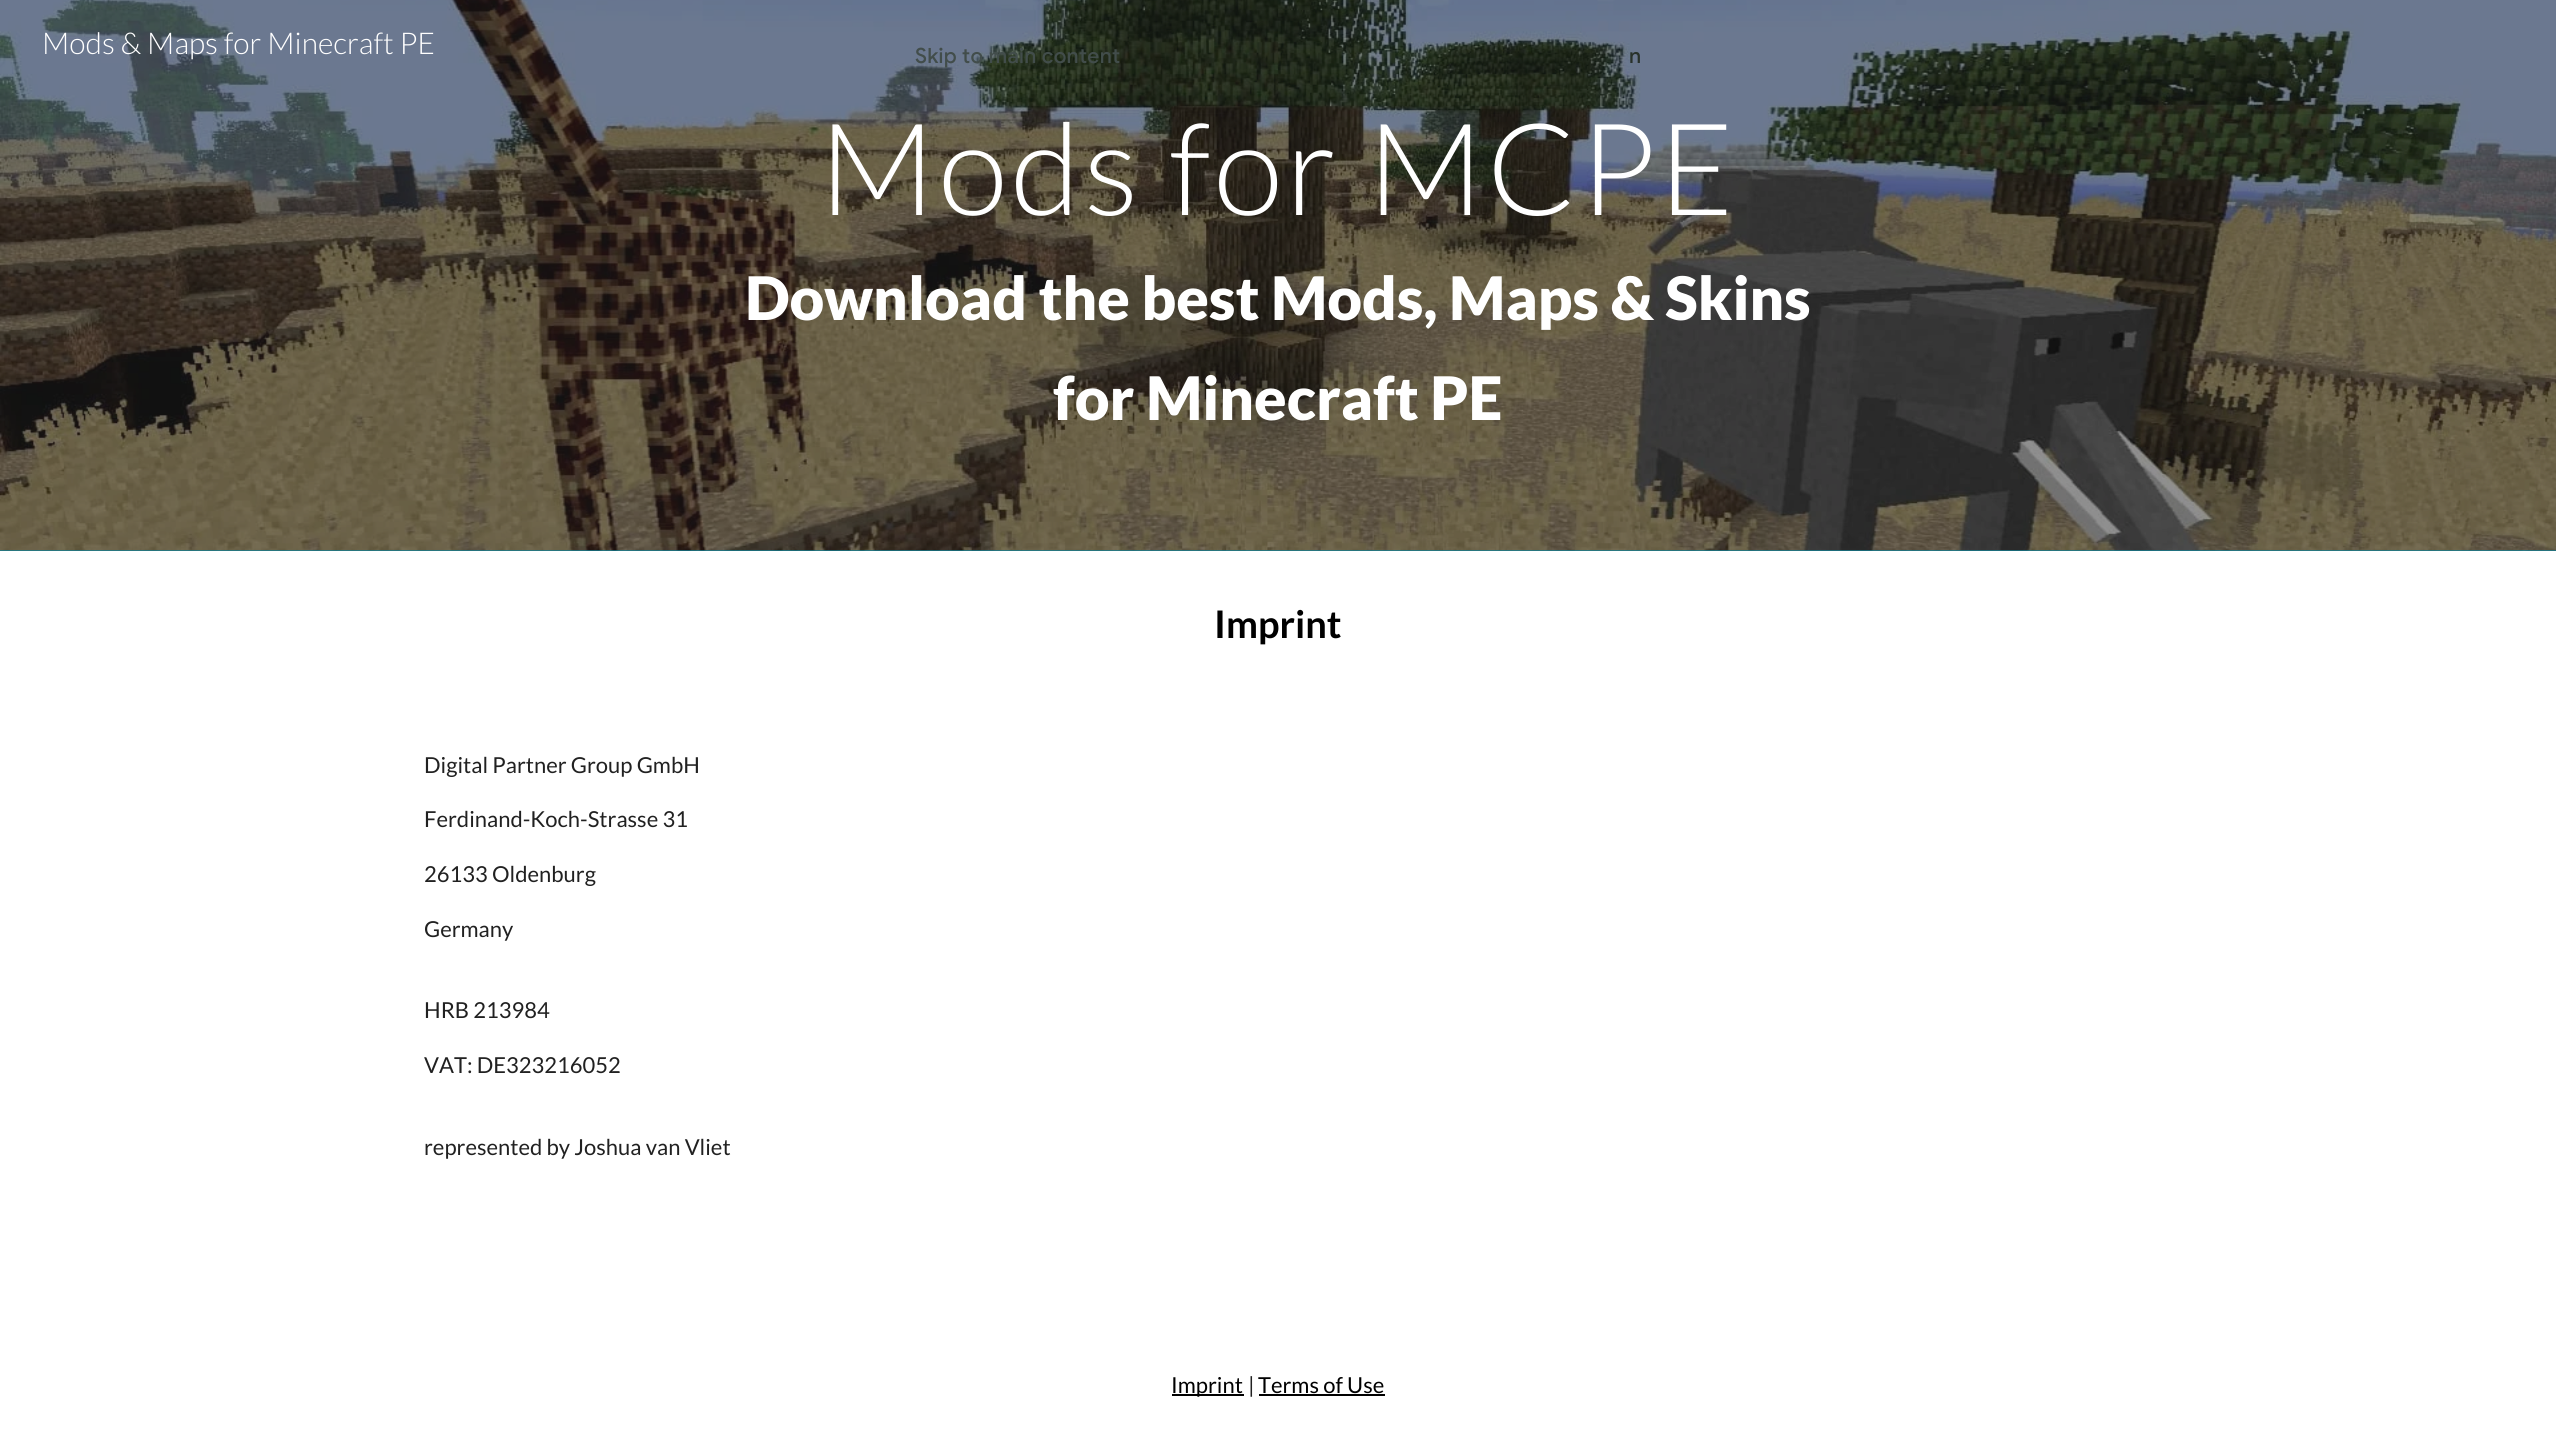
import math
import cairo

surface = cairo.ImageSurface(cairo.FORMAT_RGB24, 2556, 1446)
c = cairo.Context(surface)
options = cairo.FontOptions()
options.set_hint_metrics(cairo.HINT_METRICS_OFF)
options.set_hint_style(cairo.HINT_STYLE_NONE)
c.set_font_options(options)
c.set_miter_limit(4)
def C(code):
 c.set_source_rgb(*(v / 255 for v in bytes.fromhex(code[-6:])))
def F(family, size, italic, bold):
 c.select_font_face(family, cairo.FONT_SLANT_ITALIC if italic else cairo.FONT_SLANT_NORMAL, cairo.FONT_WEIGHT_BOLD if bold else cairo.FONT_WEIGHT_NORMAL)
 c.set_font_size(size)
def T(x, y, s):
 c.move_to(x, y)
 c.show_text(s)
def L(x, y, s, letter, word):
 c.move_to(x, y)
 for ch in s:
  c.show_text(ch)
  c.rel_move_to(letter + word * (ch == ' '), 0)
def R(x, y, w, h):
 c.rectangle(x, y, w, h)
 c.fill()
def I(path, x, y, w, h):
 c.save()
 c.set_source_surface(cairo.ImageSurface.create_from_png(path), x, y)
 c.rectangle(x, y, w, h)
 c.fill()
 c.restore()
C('ffffff')
c.paint()
C('117c90')
R(0,550,2556,1)
I('1.png',0,0,2556,551)
F('Lato Light',30,0,0)
C('ffffff')
T(42,54,'Mods & Maps for Minecraft PE')
F('Lato Light',128,0,0)
L(819,215,'Mods for MCPE',3,0)
F('Lato Black',60,0,0)
T(745,320,'Download the best Mods, Maps & Skins')
T(1053,420,'for Minecraft PE')
F('Lato',38,0,1)
C('000000')
T(1214,638,'Imprint')
F('Lato',22,0,0)
C('212121')
T(424,773,'Digital Partner Group GmbH')
T(424,827,'Ferdinand-Koch-Strasse 31')
T(424,882,'26133 Oldenburg')
T(424,937,'Germany')
T(424,1018,'HRB 213984')
T(424,1073,'VAT: DE323216052')
T(424,1155,'represented by Joshua van Vliet')
C('000000')
R(1172,1394,72,2)
T(1171,1393,'Imprint')
C('212121')
T(1248,1393,'|')
C('000000')
T(1258,1393,'Terms of Use')
R(1259,1394,126,2)
F('Google Sans Medium',21,0,0)
C('424d4b')
L(915,63,'Skip to main content',.25,0)
C('29322b')
L(1629,63,'n',.25,0)
surface.write_to_png('o.png')
